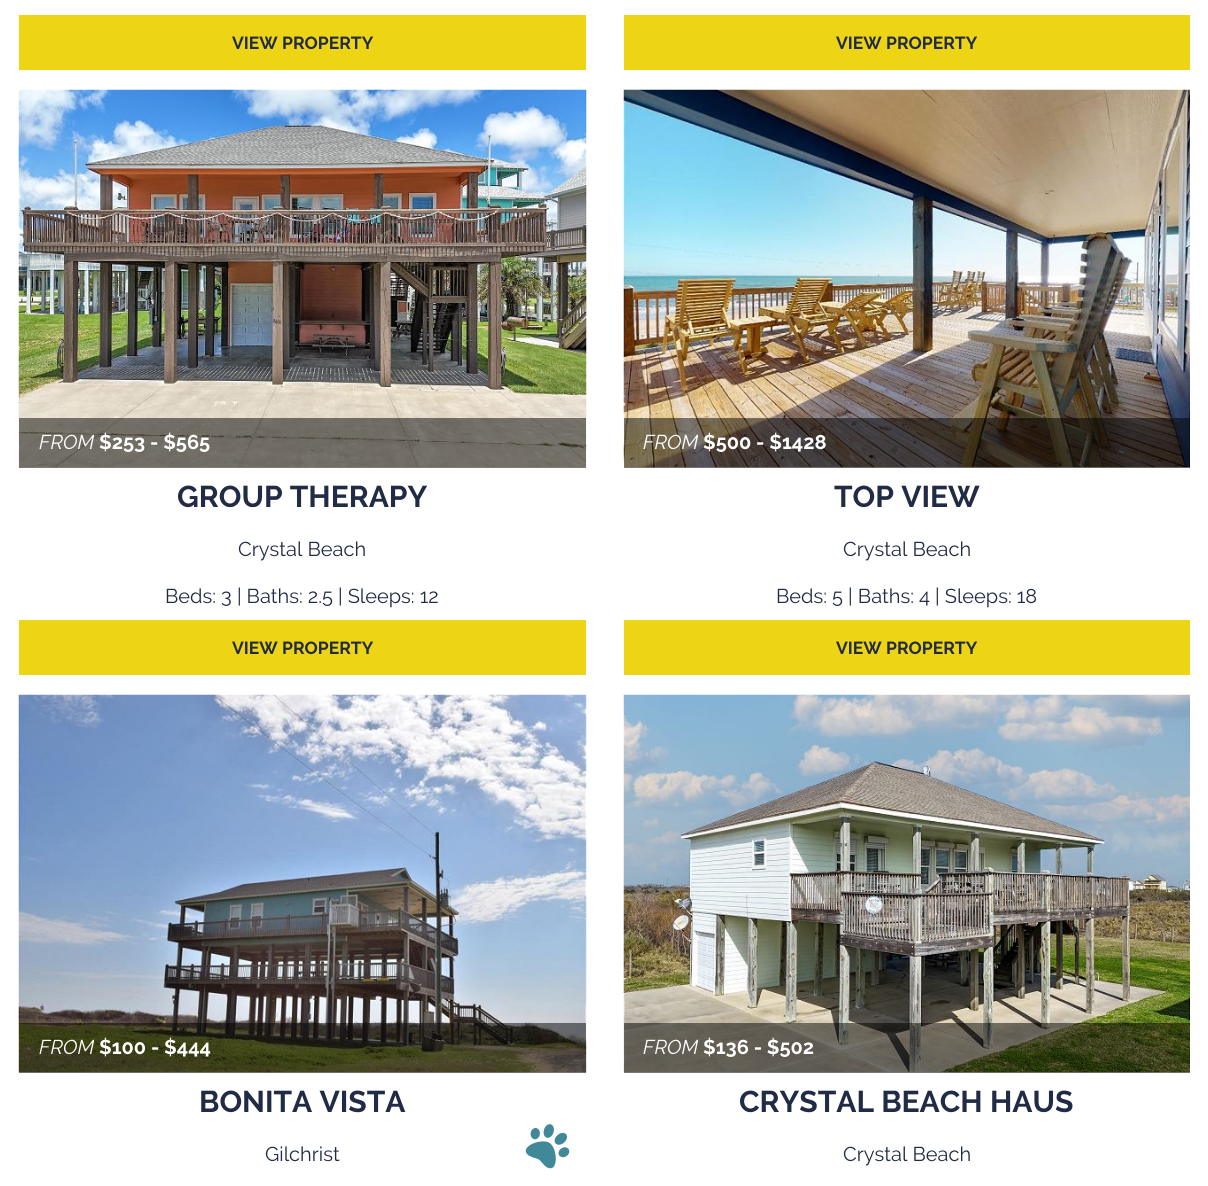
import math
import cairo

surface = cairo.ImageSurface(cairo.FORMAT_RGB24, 1208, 1186)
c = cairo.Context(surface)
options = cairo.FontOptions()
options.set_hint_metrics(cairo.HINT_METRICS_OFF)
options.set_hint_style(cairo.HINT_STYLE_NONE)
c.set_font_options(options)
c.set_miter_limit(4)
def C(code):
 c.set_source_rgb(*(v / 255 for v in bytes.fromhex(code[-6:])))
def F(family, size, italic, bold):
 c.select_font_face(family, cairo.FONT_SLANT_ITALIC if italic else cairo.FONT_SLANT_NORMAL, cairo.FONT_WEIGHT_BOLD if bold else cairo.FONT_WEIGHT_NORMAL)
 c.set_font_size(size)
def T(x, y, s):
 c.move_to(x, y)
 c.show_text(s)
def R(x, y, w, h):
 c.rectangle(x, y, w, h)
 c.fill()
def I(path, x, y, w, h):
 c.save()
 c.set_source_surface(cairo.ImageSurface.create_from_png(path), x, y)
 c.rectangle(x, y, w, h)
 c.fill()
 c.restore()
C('ffffff')
c.paint()
C('edd414')
R(19,15,567,55)
F('Raleway',17.5,0,1)
C('222b45')
T(232,49,'VIEW PROPERTY')
C('edd414')
R(624,15,566,55)
C('222b45')
T(836,49,'VIEW PROPERTY')
I('1.png',18,89,569,379)
c.set_source_rgba(0,0,0,0.5)
R(19,418,567,50)
F('Raleway',20,1,0)
C('ffffff')
T(39,449,'FROM')
F('Raleway',20,0,1)
T(99,449,'$253 - $565')
F('Raleway',30,0,1)
C('222b45')
T(177,507,'GROUP THERAPY')
F('Raleway',20,0,0)
T(238,556,'Crystal Beach')
T(165,603,'Beds: 3 | Baths: 2.5 | Sleeps: 12')
C('edd414')
R(19,620,567,55)
F('Raleway',17.5,0,1)
C('222b45')
T(232,654,'VIEW PROPERTY')
I('2.png',623,89,567,379)
c.set_source_rgba(0,0,0,0.5)
R(624,418,566,50)
F('Raleway',20,1,0)
C('ffffff')
T(643,449,'FROM')
F('Raleway',20,0,1)
T(703,449,'$500 - $1428')
F('Raleway',30,0,1)
C('222b45')
T(834,507,'TOP VIEW')
F('Raleway',20,0,0)
T(843,556,'Crystal Beach')
T(776,603,'Beds: 5 | Baths: 4 | Sleeps: 18')
C('edd414')
R(624,620,566,55)
F('Raleway',17.5,0,1)
C('222b45')
T(836,654,'VIEW PROPERTY')
I('3.png',18,694,569,379)
c.set_source_rgba(0,0,0,0.5)
R(19,1023,567,50)
F('Raleway',20,1,0)
C('ffffff')
T(39,1054,'FROM')
F('Raleway',20,0,1)
T(99,1054,'$100 - $444')
F('Raleway',30,0,1)
C('222b45')
T(199,1112,'BONITA VISTA')
F('Raleway',20,0,0)
T(265,1161,'Gilchrist')
I('4.png',525,1124,45,45)
I('5.png',623,694,567,379)
c.set_source_rgba(0,0,0,0.5)
R(624,1023,566,50)
F('Raleway',20,1,0)
C('ffffff')
T(643,1054,'FROM')
F('Raleway',20,0,1)
T(703,1054,'$136 - $502')
F('Raleway',30,0,1)
C('222b45')
T(739,1112,'CRYSTAL BEACH HAUS')
F('Raleway',20,0,0)
T(843,1161,'Crystal Beach')
surface.write_to_png('o.png')
